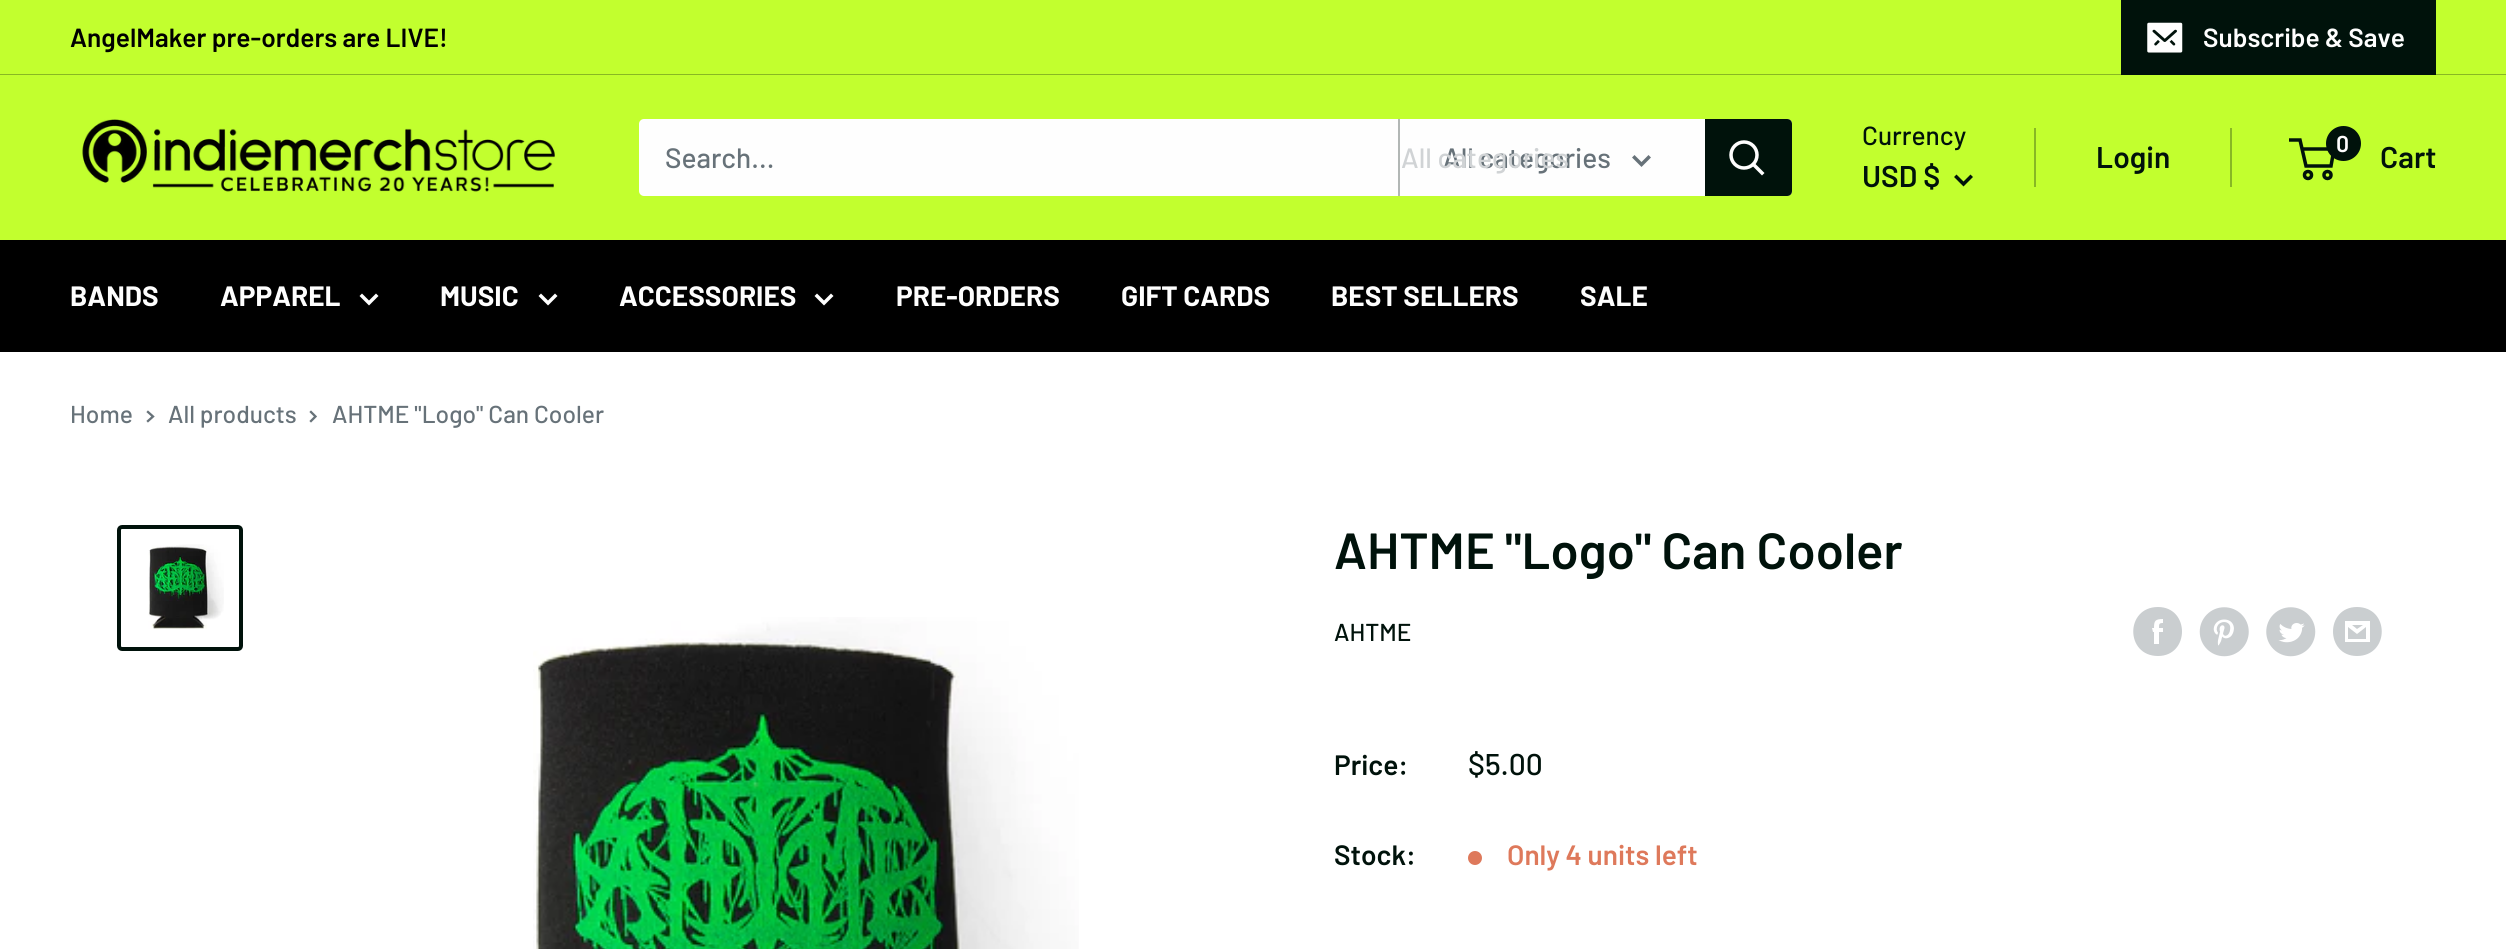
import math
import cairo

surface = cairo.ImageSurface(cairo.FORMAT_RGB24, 2506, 949)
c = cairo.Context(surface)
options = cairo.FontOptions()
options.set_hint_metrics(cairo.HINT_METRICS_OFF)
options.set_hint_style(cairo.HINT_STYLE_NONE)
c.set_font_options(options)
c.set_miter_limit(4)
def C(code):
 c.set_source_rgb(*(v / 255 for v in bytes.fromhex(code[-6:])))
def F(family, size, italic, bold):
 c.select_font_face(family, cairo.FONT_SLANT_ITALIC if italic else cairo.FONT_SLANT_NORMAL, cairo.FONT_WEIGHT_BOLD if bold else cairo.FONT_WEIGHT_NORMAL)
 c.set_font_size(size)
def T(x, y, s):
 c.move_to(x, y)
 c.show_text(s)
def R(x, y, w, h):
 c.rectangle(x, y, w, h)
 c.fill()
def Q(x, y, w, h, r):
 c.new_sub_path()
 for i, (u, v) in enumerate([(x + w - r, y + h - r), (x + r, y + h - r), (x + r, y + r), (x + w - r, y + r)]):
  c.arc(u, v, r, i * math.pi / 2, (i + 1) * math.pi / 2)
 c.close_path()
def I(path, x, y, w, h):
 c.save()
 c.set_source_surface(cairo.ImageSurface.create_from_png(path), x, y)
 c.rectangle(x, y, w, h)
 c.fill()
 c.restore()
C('ffffff')
c.paint()
C('c2ff2e')
R(0,0,2506,74)
C('88b823')
R(0,74,2506,1)
F('Barlow SemiBold',26.25,0,0)
C('000000')
T(70,47,'AngelMaker pre-orders are LIVE!')
C('00120b')
R(2121,0,315,75)
I('1.png',2147,22,36,31)
C('fefefe')
T(2203,47,'Subscribe & Save')
C('c2ff2e')
R(0,75,2506,165)
I('2.png',82,119,473,73)
C('fefefe')
Q(639,119,1153,77,5)
c.fill()
F('Barlow Medium',28,0,0)
C('677279')
T(665,168,'Search...')
C('b2b7b5')
R(1398,119,2,77)
C('677279')
T(1443,168,'All categories')
C('d0d3d5')
T(1401,168,'All categories')
c.new_path()
c.move_to(1648.5,157.5)
c.line_to(1641.5,164.5)
c.line_to(1634.5,157.5)
C('677279')
c.set_line_width(3.5)
c.set_line_cap(cairo.LINE_CAP_SQUARE)
c.stroke()
C('00120b')
c.new_path()
c.move_to(1705,119)
c.line_to(1787,119)
c.curve_to(1790,119,1792,121,1792,124)
c.line_to(1792,191)
c.curve_to(1792,194,1790,196,1787,196)
c.line_to(1705,196)
c.close_path()
c.fill()
c.new_path()
c.move_to(1762,173)
c.line_to(1753.5,164.5)
C('fefefe')
c.stroke()
c.arc(1744,155,13,0,2 * math.pi)
c.set_line_cap(cairo.LINE_CAP_BUTT)
c.stroke()
F('Barlow Medium',26.25,0,0)
C('00120b')
T(1862,145,'Currency')
F('Barlow SemiBold',30,0,0)
T(1862,187,'USD $')
c.new_path()
c.move_to(1970.5,177)
c.line_to(1963.5,184)
c.line_to(1956.5,177)
c.set_line_cap(cairo.LINE_CAP_SQUARE)
c.stroke()
C('88b824')
R(2034,128,2,59)
C('00120b')
T(2096,168,'Login')
C('88b824')
R(2230,128,2,59)
c.new_path()
c.arc(2308,175,3.5,0,2 * math.pi)
C('00120b')
c.set_line_cap(cairo.LINE_CAP_BUTT)
c.stroke()
c.arc(2327.5,175,3.5,0,2 * math.pi)
c.stroke()
c.new_path()
c.move_to(2302,149)
c.line_to(2334,149)
c.line_to(2331,166)
c.line_to(2306,166)
c.line_to(2300,140)
c.line_to(2289,140)
c.stroke()
c.arc(2343.5,143.5,17.5,0,2 * math.pi)
c.fill()
F('Barlow SemiBold',23,0,0)
C('fefefe')
T(2336,152,'0')
F('Barlow SemiBold',30,0,0)
C('00120b')
T(2380,168,'Cart')
C('000000')
R(0,240,2506,112)
F('Barlow',28,0,1)
C('fefefe')
T(70,306,'BANDS')
T(220,306,'APPAREL')
c.new_path()
c.move_to(376,296)
c.line_to(369,303)
c.line_to(362,296)
C('ffffff')
c.set_line_cap(cairo.LINE_CAP_SQUARE)
c.stroke()
C('fefefe')
T(440,306,'MUSIC')
c.new_path()
c.move_to(555,296)
c.line_to(548,303)
c.line_to(541,296)
C('ffffff')
c.stroke()
C('fefefe')
T(619,306,'ACCESSORIES')
c.new_path()
c.move_to(831,296)
c.line_to(824,303)
c.line_to(817,296)
C('ffffff')
c.stroke()
C('fefefe')
T(896,306,'PRE-ORDERS')
T(1121,306,'GIFT CARDS')
T(1331,306,'BEST SELLERS')
T(1580,306,'SALE')
F('Barlow Medium',24.5,0,0)
C('677279')
T(70,423,'Home')
c.new_path()
c.move_to(148,412)
c.line_to(153,416.5)
c.line_to(148,421)
c.set_line_width(2.3)
c.stroke()
T(168,423,'All products')
c.new_path()
c.move_to(311,412)
c.line_to(315.5,416.5)
c.line_to(311,421)
c.stroke()
T(332,423,'AHTME "Logo" Can Cooler')
Q(119,527,122,122,3)
C('00120b')
c.set_line_width(4)
c.set_line_cap(cairo.LINE_CAP_BUTT)
c.stroke()
I('3.png',148,544,76,85)
I('4.png',533,617,546,332)
F('Barlow SemiBold',50.75,0,0)
T(1334,569,'AHTME "Logo" Can Cooler')
F('Barlow Medium',24.5,0,0)
T(1334,641,'AHTME')
C('caced0')
c.set_fill_rule(cairo.FILL_RULE_EVEN_ODD)
c.new_path()
c.move_to(2158,656)
c.curve_to(2125,656,2125,607,2158,607)
c.curve_to(2190,607,2190,656,2158,656)
c.close_path()
c.move_to(2163,628)
c.line_to(2159,628)
c.curve_to(2159,624,2159,623,2163,623)
c.line_to(2163,619)
c.curve_to(2155,619,2154,621,2154,628)
c.line_to(2152,628)
c.line_to(2153,632)
c.line_to(2154,632)
c.line_to(2154,644)
c.line_to(2159,644)
c.line_to(2159,632)
c.line_to(2163,632)
c.close_path()
c.fill()
I('5.png',2199,607,50,50)
I('6.png',2266,607,50,50)
c.set_fill_rule(cairo.FILL_RULE_WINDING)
c.new_path()
c.move_to(2357,656)
c.curve_to(2325,656,2325,607,2357,607)
c.curve_to(2390,607,2390,656,2357,656)
c.close_path()
c.move_to(2352,625)
c.line_to(2363,625)
c.line_to(2357,629)
c.close_path()
c.move_to(2366,627)
c.line_to(2366,639)
c.line_to(2348,639)
c.line_to(2348,627)
c.line_to(2357,634)
c.close_path()
c.move_to(2370,621)
c.line_to(2345,621)
c.line_to(2345,642)
c.line_to(2370,642)
c.close_path()
c.fill()
F('Barlow SemiBold',28,0,0)
C('00120b')
T(1334,775,'Price:')
F('Barlow Medium',30,0,0)
T(1468,775,'$5.00')
F('Barlow SemiBold',28,0,0)
T(1334,865,'Stock:')
C('de795b')
c.new_path()
c.arc(1475,858,7,0,2 * math.pi)
c.fill()
T(1507,865,'Only 4 units left')
surface.write_to_png('o.png')
